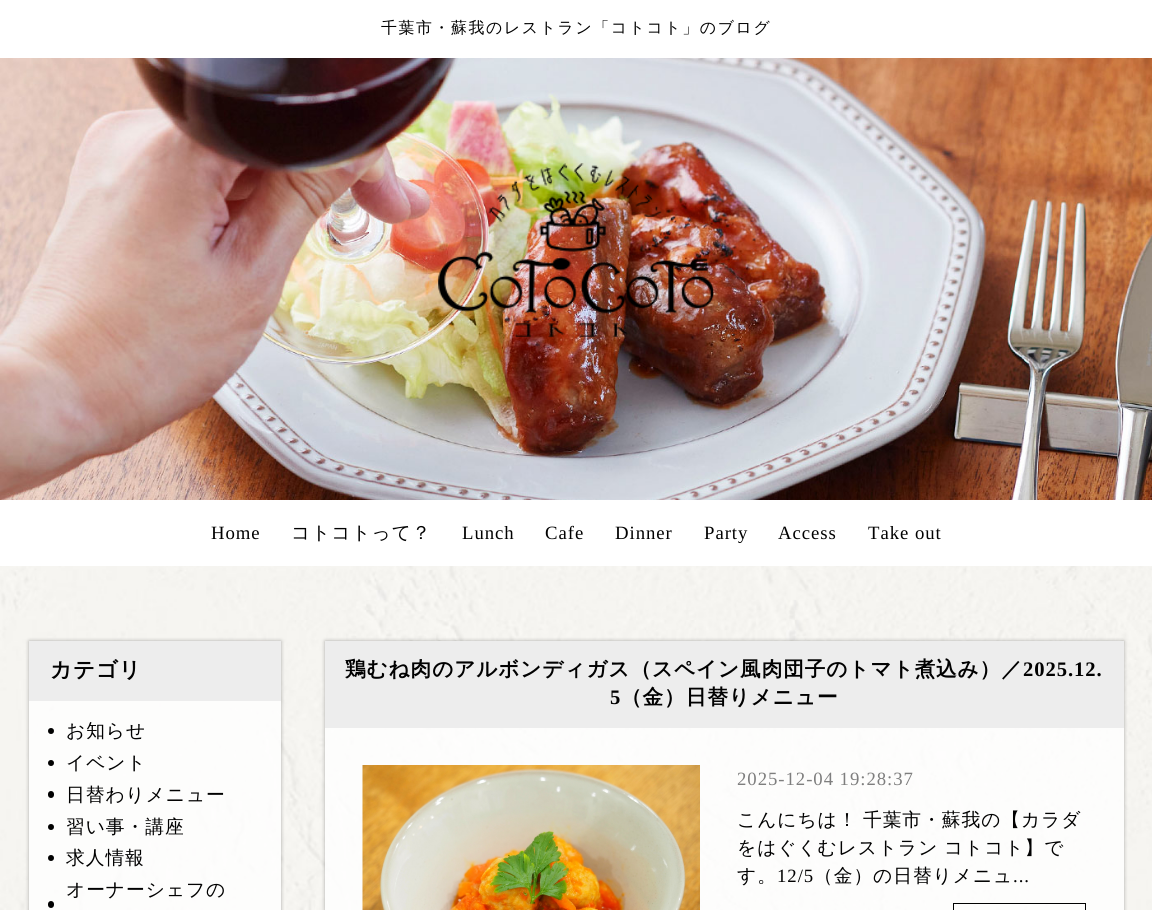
import math
import cairo

surface = cairo.ImageSurface(cairo.FORMAT_RGB24, 1152, 910)
c = cairo.Context(surface)
options = cairo.FontOptions()
options.set_hint_metrics(cairo.HINT_METRICS_OFF)
options.set_hint_style(cairo.HINT_STYLE_NONE)
c.set_font_options(options)
c.set_miter_limit(4)
def C(code):
 c.set_source_rgb(*(v / 255 for v in bytes.fromhex(code[-6:])))
def F(family, size, italic, bold):
 c.select_font_face(family, cairo.FONT_SLANT_ITALIC if italic else cairo.FONT_SLANT_NORMAL, cairo.FONT_WEIGHT_BOLD if bold else cairo.FONT_WEIGHT_NORMAL)
 c.set_font_size(size)
def L(x, y, s, letter, word):
 c.move_to(x, y)
 for ch in s:
  c.show_text(ch)
  c.rel_move_to(letter + word * (ch == ' '), 0)
def R(x, y, w, h):
 c.rectangle(x, y, w, h)
 c.fill()
def Q(x, y, w, h, r):
 c.new_sub_path()
 for i, (u, v) in enumerate([(x + w - r, y + h - r), (x + r, y + h - r), (x + r, y + r), (x + w - r, y + r)]):
  c.arc(u, v, r, i * math.pi / 2, (i + 1) * math.pi / 2)
 c.close_path()
def S(x, y, w, h, r, blur, alpha):
 c.push_group_with_content(cairo.CONTENT_ALPHA)
 c.set_operator(cairo.OPERATOR_SOURCE)
 for i in range(15, -16, -2):
  e = blur * i / 6
  if min(w, h) + 2 * e > 0:
   c.set_source_rgba(0, 0, 0, alpha * math.erfc((i - 1) / 8.5) / 2)
   Q(x - e, y - e, w + 2 * e, h + 2 * e, max(0, min(r + e + blur * .6, min(w, h) / 2 + e)))
   c.fill()
 c.mask(c.pop_group())
def I(path, x, y, w, h):
 c.save()
 c.set_source_surface(cairo.ImageSurface.create_from_png(path), x, y)
 c.rectangle(x, y, w, h)
 c.fill()
 c.restore()
C('ffffff')
c.paint()
I('1.png',0,566,1152,344)
I('2.png',0,58,1152,442)
F('WenQuanYi Zen Hei Medium',15.9,0,0)
C('010101')
L(381,33,'千葉市・蘇我のレストラン「コトコト」のブログ',1.6,0)
I('3.png',438,163,276,174)
F('Liberation Serif',18.75,0,0)
L(211,539,'Home',.95,0)
F('WenQuanYi Zen Hei Medium',18.75,0,0)
L(291,539,'コトコトって？',.95,0)
F('Liberation Serif',18.75,0,0)
L(462,539,'Lunch',.95,0)
L(545,539,'Cafe',.95,0)
L(615,539,'Dinner',.95,0)
L(704,539,'Party',.95,0)
L(778,539,'Access',.95,0)
L(868,539,'Take out',.95,0)
c.save()
c.set_fill_rule(cairo.FILL_RULE_EVEN_ODD)
c.new_path()
c.move_to(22,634)
c.line_to(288,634)
c.line_to(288,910)
c.line_to(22,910)
c.close_path()
c.move_to(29,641)
c.line_to(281,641)
c.line_to(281,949)
c.line_to(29,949)
c.close_path()
c.clip()
C('000000')
S(29,641,252,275,0,2,.3)
c.restore()
c.set_source_rgba(1,1,1,0.8)
R(29,701,252,209)
C('ededed')
R(29,641,252,60)
F('WenQuanYi Zen Hei',21.5,0,1)
C('010101')
L(50,677,'カテゴリ',.95,0)
c.new_path()
c.arc(51,731,3,0,2 * math.pi)
c.fill()
F('WenQuanYi Zen Hei Medium',18.75,0,0)
L(66,737,'お知らせ',.95,0)
c.new_path()
c.arc(51,763,3,0,2 * math.pi)
c.fill()
L(66,769,'イベント',.95,0)
Q(48,791,6,7,3)
c.fill()
L(66,801,'日替わりメニュー',.95,0)
c.new_path()
c.arc(51,827,3,0,2 * math.pi)
c.fill()
L(66,833,'習い事・講座',.95,0)
c.new_path()
c.arc(51,858,3,0,2 * math.pi)
c.fill()
L(66,864,'求人情報',.95,0)
L(66,896,'オーナーシェフの',.95,0)
Q(48,901,6,7,3)
c.fill()
c.save()
c.set_fill_rule(cairo.FILL_RULE_EVEN_ODD)
c.new_path()
c.move_to(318,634)
c.line_to(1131,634)
c.line_to(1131,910)
c.line_to(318,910)
c.close_path()
c.move_to(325,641)
c.line_to(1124,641)
c.line_to(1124,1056)
c.line_to(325,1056)
c.close_path()
c.clip()
C('000000')
S(325,641,799,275,0,2,.3)
c.restore()
c.set_source_rgba(1,1,1,0.8)
R(325,728,799,182)
C('ededed')
R(325,641,799,87)
F('WenQuanYi Zen Hei',20.6,0,1)
C('010101')
L(345,676,'鶏むね肉のアルボンディガス（スペイン風肉団子のトマト煮込み）／',.95,0)
F('Liberation Serif',20.6,0,1)
L(1023,676,'2025.12.',.95,0)
L(610,704,'5',.95,0)
F('WenQuanYi Zen Hei',20.6,0,1)
L(621,704,'（金）日替りメニュー',.95,0)
I('4.png',362,765,338,145)
F('Liberation Serif',18.75,0,0)
C('7e7e7e')
L(737,785,'2025-12-04 19:28:37',.95,0)
F('WenQuanYi Zen Hei Medium',18.75,0,0)
C('010101')
L(737,826,'こんにちは！ 千葉市・蘇我の【カラダ',.95,-1)
L(737,854,'をはぐくむレストラン コトコト】で',.95,-1)
L(737,882,'す。',.95,0)
F('Liberation Serif',18.75,0,0)
L(777,882,'12/5',.95,0)
F('WenQuanYi Zen Hei Medium',18.75,0,0)
L(814,882,'（金）の日替りメニュ',.95,0)
F('Liberation Serif',18.75,0,0)
L(1013,882,'...',.95,0)
c.rectangle(953.5,903.5,132,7)
c.set_line_width(1)
c.stroke()
surface.write_to_png('o.png')
